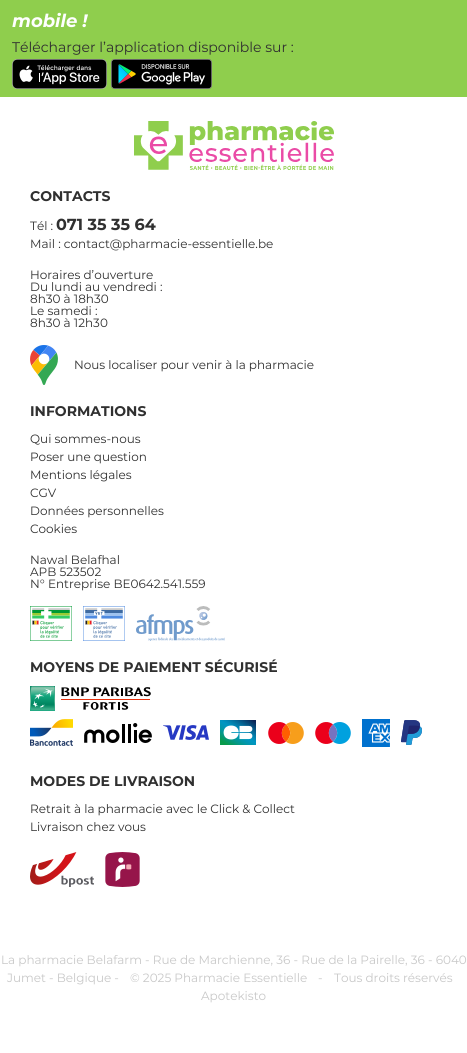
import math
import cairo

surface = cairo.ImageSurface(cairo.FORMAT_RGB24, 467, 1053)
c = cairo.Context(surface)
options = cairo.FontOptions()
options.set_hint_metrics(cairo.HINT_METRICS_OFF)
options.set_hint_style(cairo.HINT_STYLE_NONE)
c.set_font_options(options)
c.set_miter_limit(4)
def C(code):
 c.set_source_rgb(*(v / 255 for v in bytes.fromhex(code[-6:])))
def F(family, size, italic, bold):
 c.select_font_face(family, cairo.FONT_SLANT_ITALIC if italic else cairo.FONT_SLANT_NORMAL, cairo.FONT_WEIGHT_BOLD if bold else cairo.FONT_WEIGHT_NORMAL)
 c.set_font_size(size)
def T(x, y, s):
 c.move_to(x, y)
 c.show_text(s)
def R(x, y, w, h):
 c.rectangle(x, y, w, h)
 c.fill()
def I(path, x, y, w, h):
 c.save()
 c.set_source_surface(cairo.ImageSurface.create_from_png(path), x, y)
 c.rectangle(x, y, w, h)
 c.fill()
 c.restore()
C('ffffff')
c.paint()
C('8fce4d')
R(0,0,467,97)
F('Montserrat',18,1,1)
C('ffffff')
T(12,27,'mobile !')
F('Montserrat',14,0,0)
C('303030')
T(12,52,'Télécharger l’application disponible sur :')
I('1.png',12,59,95,30)
I('2.png',111,59,101,30)
I('3.png',134,121,200,49)
F('Montserrat',14,0,1)
T(30,201,'CONTACTS')
F('Montserrat',12,0,0)
T(30,230,'Tél :')
F('Montserrat',16,0,1)
T(56,230,'071 35 35 64')
F('Montserrat',12,0,0)
T(30,248,'Mail : contact@pharmacie-essentielle.be')
T(30,279,'Horaires d’ouverture')
T(30,291,'Du lundi au vendredi :')
T(30,303,'8h30 à 18h30')
T(30,315,'Le samedi :')
T(30,327,'8h30 à 12h30')
I('4.png',30,345,28,40)
T(74,369,'Nous localiser pour venir à la pharmacie')
F('Montserrat',14,0,1)
T(30,416,'INFORMATIONS')
F('Montserrat',12,0,0)
T(30,443,'Qui sommes-nous')
T(30,461,'Poser une question')
T(30,479,'Mentions légales')
T(30,497,'CGV')
T(30,515,'Données personnelles')
T(30,533,'Cookies')
T(30,564,'Nawal Belafhal')
T(30,576,'APB 523502')
T(30,588,'N° Entreprise BE0642.541.559')
I('5.png',30,606,42,35)
I('6.png',83,606,42,35)
I('7.png',136,606,89,35)
F('Montserrat',14,0,1)
T(30,672,'MOYENS DE PAIEMENT SÉCURISÉ')
I('8.png',30,686,121,25)
I('9.png',30,719,43,27)
I('10.png',84,723,68,20)
I('11.png',163,725,46,15)
I('12.png',220,720,36,25)
I('13.png',268,722,36,22)
I('14.png',315,722,36,22)
I('15.png',362,719,28,28)
I('16.png',401,720,21,25)
T(30,786,'MODES DE LIVRAISON')
F('Montserrat',12,0,0)
T(30,813,'Retrait à la pharmacie avec le Click & Collect')
T(30,831,'Livraison chez vous')
I('17.png',30,852,64,35)
I('18.png',105,852,35,35)
C('c8c8c8')
T(1,964,'La pharmacie Belafarm - Rue de Marchienne, 36 - Rue de la Pairelle, 36 - 6040')
T(7,982,'Jumet - Belgique -')
T(130,982,'© 2025 Pharmacie Essentielle')
T(318,982,'-')
T(334,982,'Tous droits réservés')
T(201,1000,'Apotekisto')
surface.write_to_png('o.png')
